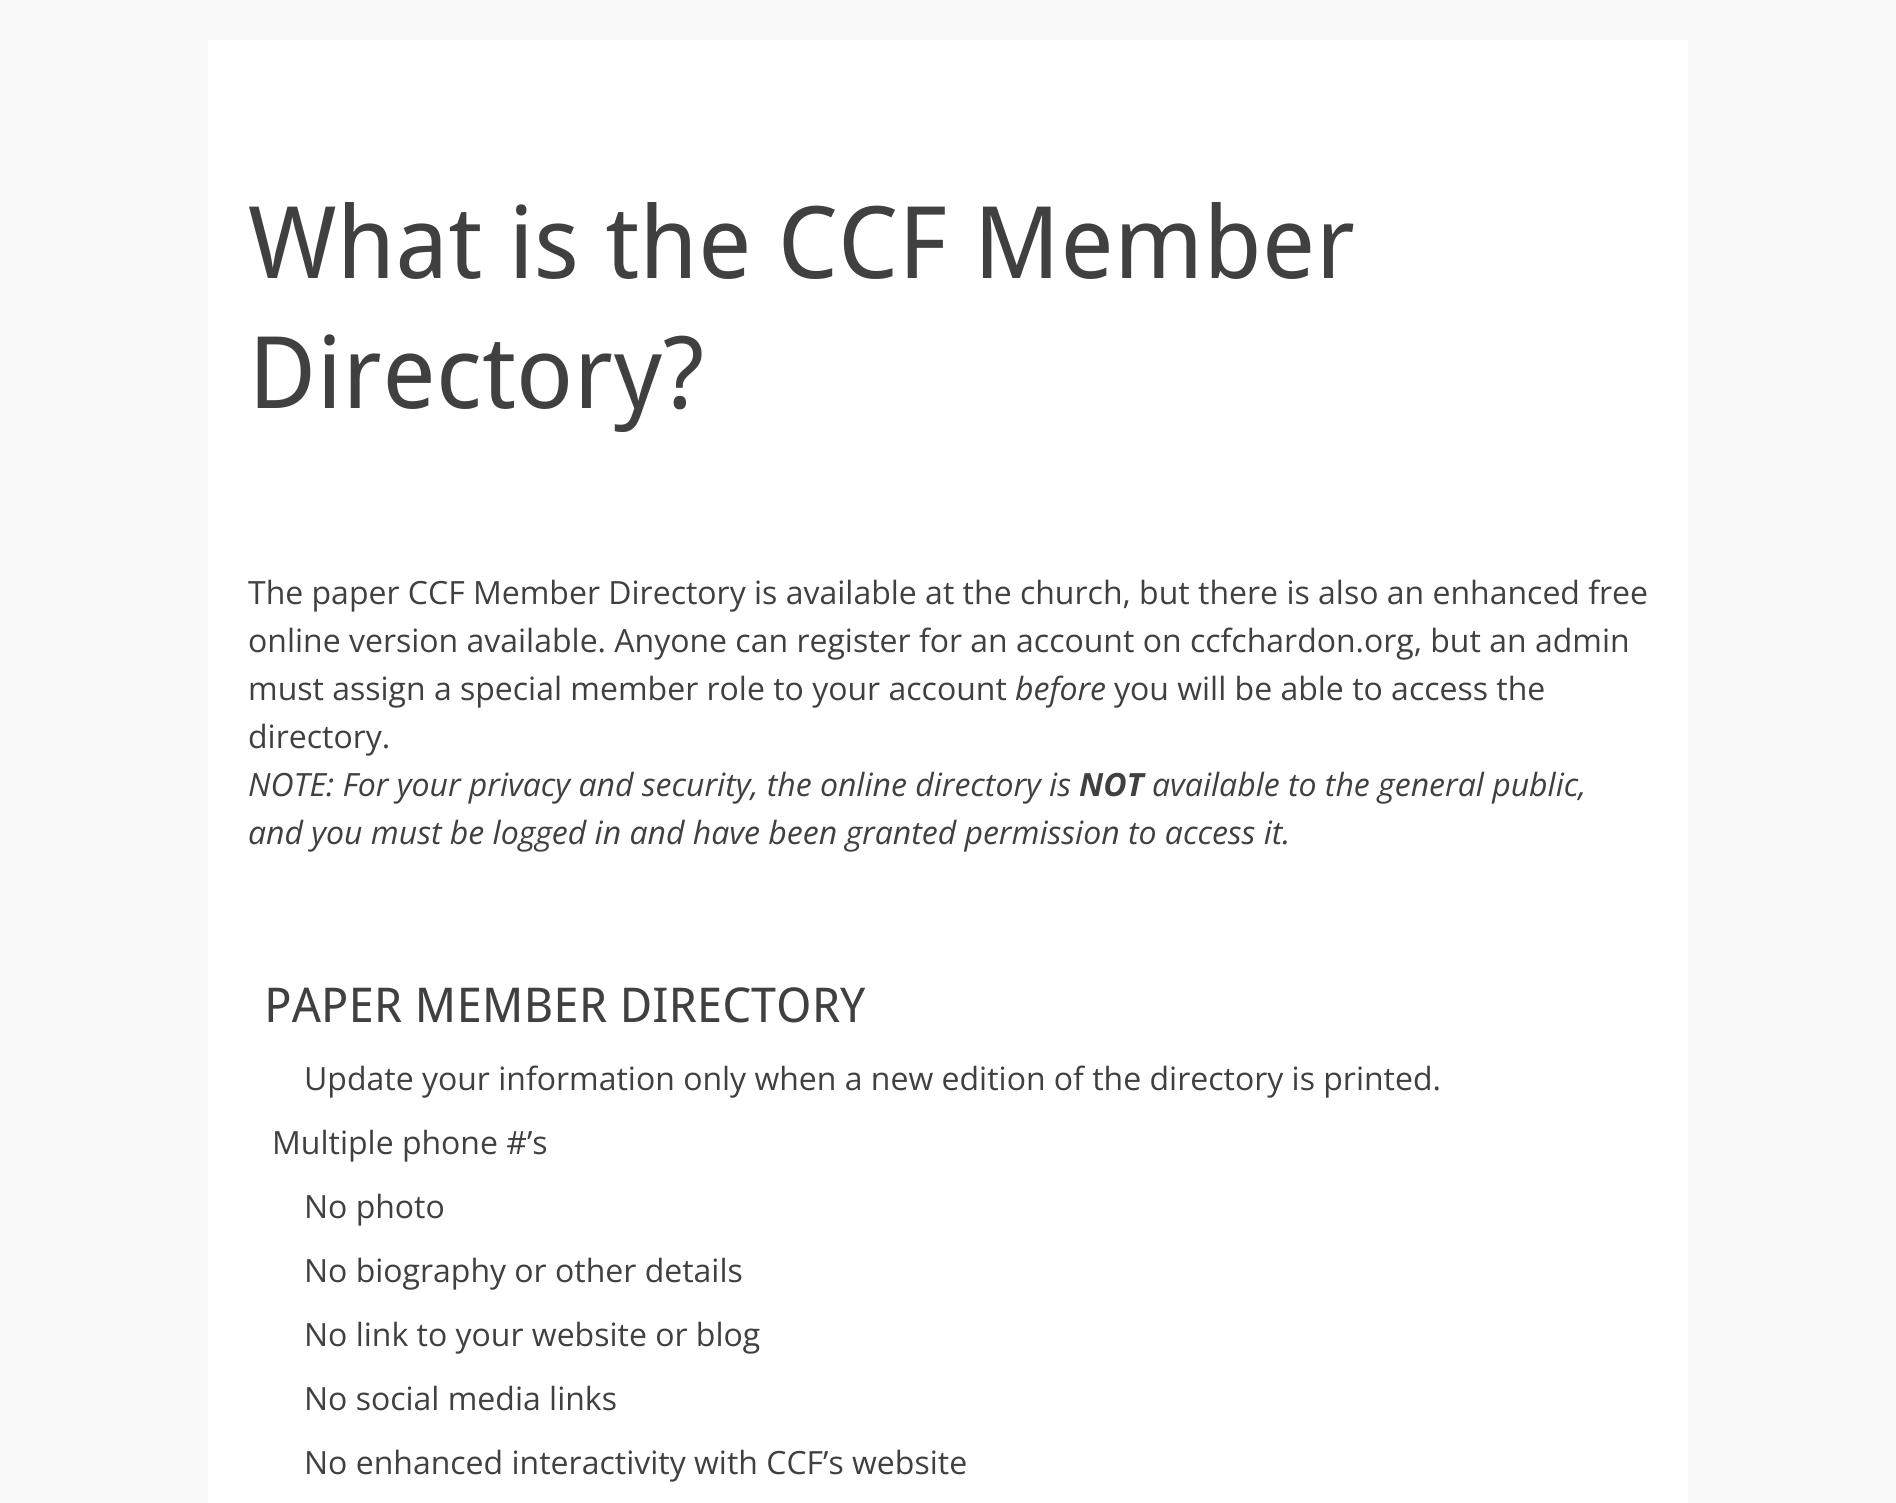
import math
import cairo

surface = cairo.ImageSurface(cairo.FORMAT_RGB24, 1896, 1503)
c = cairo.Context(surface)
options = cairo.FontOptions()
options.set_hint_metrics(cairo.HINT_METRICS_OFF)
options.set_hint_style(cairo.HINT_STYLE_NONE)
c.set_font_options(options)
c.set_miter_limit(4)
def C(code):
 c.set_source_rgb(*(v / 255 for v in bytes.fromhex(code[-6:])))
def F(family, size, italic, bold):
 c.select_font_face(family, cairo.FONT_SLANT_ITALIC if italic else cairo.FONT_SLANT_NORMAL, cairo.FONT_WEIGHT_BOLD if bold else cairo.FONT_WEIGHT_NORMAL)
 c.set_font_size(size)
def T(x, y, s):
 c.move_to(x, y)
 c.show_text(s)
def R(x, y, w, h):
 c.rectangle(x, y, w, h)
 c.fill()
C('f9f9f9')
c.paint()
C('ffffff')
R(208,40,1480,1463)
F('Droid Sans',100,0,0)
C('404040')
T(248,278,'What is the CCF Member')
T(248,408,'Directory?')
F('Open Sans',32,0,0)
T(248,604,'The paper CCF Member Directory is available at the church, but there is also an enhanced free')
T(248,652,'online version available. Anyone can register for an account on ccfchardon.org, but an admin')
T(248,700,'must assign a special member role to your account')
F('Open Sans',32,1,0)
T(1015,700,'before')
F('Open Sans',32,0,0)
T(1114,700,'you will be able to access the')
T(248,748,'directory.')
F('Open Sans',32,1,0)
T(248,796,'NOTE: For your privacy and security, the online directory is')
F('Open Sans',32,1,1)
T(1079,796,'NOT')
F('Open Sans',32,1,0)
T(1152,796,'available to the general public,')
T(248,844,'and you must be logged in and have been granted permission to access it.')
F('Droid Sans',48,0,0)
T(264,1022,'PAPER MEMBER DIRECTORY')
F('Open Sans',32,0,0)
T(304,1090,'Update your information only when a new edition of the directory is printed.')
T(272,1154,'Multiple phone #’s')
T(304,1218,'No photo')
T(304,1282,'No biography or other details')
T(304,1346,'No link to your website or blog')
T(304,1410,'No social media links')
T(304,1474,'No enhanced interactivity with CCF’s website')
surface.write_to_png('o.png')
